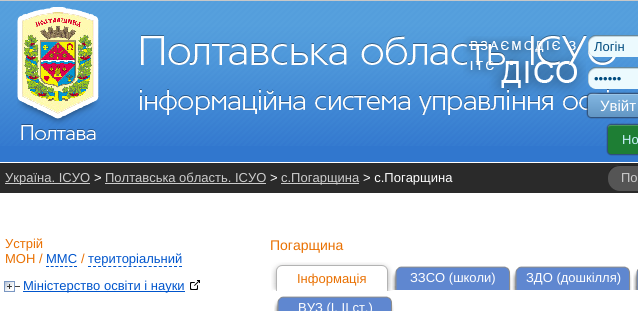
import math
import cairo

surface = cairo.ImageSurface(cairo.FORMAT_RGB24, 638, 311)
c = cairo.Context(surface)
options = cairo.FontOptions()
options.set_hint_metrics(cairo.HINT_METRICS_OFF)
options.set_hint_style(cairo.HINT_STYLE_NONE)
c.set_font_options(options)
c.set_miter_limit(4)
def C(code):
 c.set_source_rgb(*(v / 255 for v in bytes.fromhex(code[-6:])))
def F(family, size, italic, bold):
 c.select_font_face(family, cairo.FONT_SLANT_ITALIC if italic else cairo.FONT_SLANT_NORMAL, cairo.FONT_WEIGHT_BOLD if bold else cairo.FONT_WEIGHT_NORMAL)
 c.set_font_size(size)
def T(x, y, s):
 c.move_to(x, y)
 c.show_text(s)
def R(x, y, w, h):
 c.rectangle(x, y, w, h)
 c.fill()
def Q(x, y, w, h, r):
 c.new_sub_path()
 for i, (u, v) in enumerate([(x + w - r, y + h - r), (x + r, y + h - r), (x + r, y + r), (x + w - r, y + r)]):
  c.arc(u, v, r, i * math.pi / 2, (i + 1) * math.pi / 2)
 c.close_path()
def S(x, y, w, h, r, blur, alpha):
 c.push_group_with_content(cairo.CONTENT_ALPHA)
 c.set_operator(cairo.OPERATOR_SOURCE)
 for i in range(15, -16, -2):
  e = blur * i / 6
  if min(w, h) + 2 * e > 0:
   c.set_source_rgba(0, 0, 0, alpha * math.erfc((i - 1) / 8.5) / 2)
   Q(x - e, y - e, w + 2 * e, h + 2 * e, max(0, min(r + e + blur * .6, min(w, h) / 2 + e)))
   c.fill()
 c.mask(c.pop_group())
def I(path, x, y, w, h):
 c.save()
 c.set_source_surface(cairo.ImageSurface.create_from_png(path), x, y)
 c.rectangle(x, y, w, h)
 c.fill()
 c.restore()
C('ffffff')
c.paint()
C('3177ce')
R(0,146,638,16)
I('1.png',0,0,638,146)
I('3.png',463,36,123,60)
I('2.png',17,7,599,133)
I('4.png',588,35,50,22)
F('Liberation Sans',13,0,0)
C('014c7f')
T(594,51,'Логін')
I('5.png',588,67,50,22)
T(594,83,'••••••')
C('2f4666')
S(587,93,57,25,4,.5,.9)
gradient = cairo.LinearGradient(622,117,622,94)
gradient.add_color_stop_rgba(0,0.384,0.588,0.769,1)
gradient.add_color_stop_rgba(1,0.51,0.714,0.882,1)
c.set_source(gradient)
Q(588,94,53,23,3)
c.fill()
c.set_source_rgba(1,1,1,0.2)
c.new_path()
c.move_to(591,95)
c.line_to(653,95)
c.curve_to(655,95,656,96,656,98)
c.curve_to(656,91,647,94,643,94)
c.line_to(601,94)
c.curve_to(597,94,588,91,588,98)
c.curve_to(588,96,589,95,591,95)
c.close_path()
c.fill()
F('Liberation Sans',15,0,0)
C('ffffff')
T(600,111,'Увійт')
C('2f4666')
S(607,124,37,31,4,.5,.9)
C('1e7e34')
Q(608,125,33,29,3)
c.fill()
c.set_source_rgba(1,1,1,0.2)
c.new_path()
c.move_to(611,126)
c.line_to(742,126)
c.curve_to(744,126,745,127,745,129)
c.curve_to(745,127,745,125,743,125)
c.line_to(610,125)
c.curve_to(608,125,608,127,608,129)
c.curve_to(608,127,609,126,611,126)
c.close_path()
c.fill()
F('Liberation Sans',13,0,0)
C('caf1ff')
T(622,144,'Но')
C('2a2a2a')
R(0,163,638,30)
C('cccccc')
R(5,183,85,1)
T(5,182,'Україна. ІСУО')
C('ffffff')
T(94,182,'>')
C('cccccc')
T(105,182,'Полтавська область. ІСУО')
R(105,183,161,1)
C('ffffff')
T(270,182,'>')
C('cccccc')
R(281,183,78,1)
T(281,182,'с.Погарщина')
C('ffffff')
T(363,182,'> с.Погарщина')
C('555555')
Q(608,165,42,26,12)
c.fill()
c.set_source_rgba(0,0,0,0.3)
c.new_path()
c.move_to(620,166)
c.line_to(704,166)
c.curve_to(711,166,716,171,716,178)
c.curve_to(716,162,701,165,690,165)
c.line_to(634,165)
c.curve_to(623,165,608,162,608,178)
c.curve_to(608,171,613,166,620,166)
c.close_path()
c.fill()
c.set_source_rgba(0,0,0,0.4)
c.new_path()
c.move_to(620,166)
c.line_to(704,166)
c.curve_to(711,166,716,171,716,178)
c.curve_to(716,162,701,165,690,165)
c.line_to(634,165)
c.curve_to(623,165,608,162,608,178)
c.curve_to(608,171,613,166,620,166)
c.close_path()
c.fill()
C('cccccc')
T(621,182,'По')
C('e97001')
T(5,248,'Устрій')
T(5,263,'МОН /')
C('0055cc')
T(46,263,'ММС')
c.new_path()
c.move_to(46,266.5)
c.line_to(77,266.5)
c.set_line_width(1)
c.set_dash([3,1.67])
c.stroke()
C('e97001')
T(81,263,'/')
C('0055cc')
T(88,263,'територіальний')
c.new_path()
c.move_to(88,266.5)
c.line_to(182,266.5)
c.set_dash([3,2.06])
c.stroke()
I('6.png',4,281,16,11)
R(23,291,162,1)
T(23,290,'Міністерство освіти і науки')
I('7.png',190,280,10,10)
F('Liberation Sans',14,0,0)
C('e97001')
T(270,250,'Погарщина')
I('9.png',392,266,120,24)
I('8.png',271,262,122,29)
F('Liberation Sans',13,0,0)
T(297,283,'Інформація')
C('ffffff')
T(410,282,'ЗЗСО (школи)')
I('9.png',512,266,120,24)
T(526,282,'ЗДО (дошкілля)')
I('10.png',633,269,5,21)
I('11.png',274,296,120,15)
T(298,312,'ВУЗ (I, II ст.)')
surface.write_to_png('o.png')
